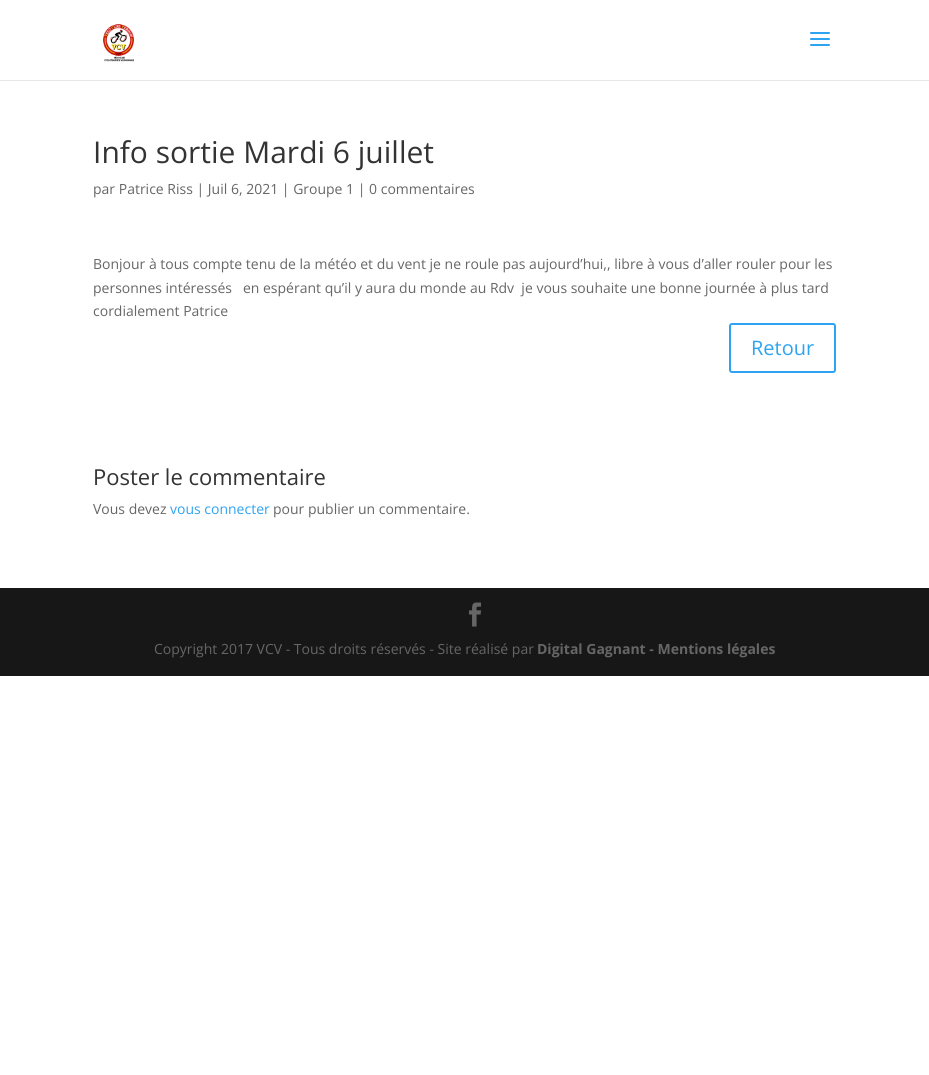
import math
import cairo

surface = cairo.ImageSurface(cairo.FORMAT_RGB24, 929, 1075)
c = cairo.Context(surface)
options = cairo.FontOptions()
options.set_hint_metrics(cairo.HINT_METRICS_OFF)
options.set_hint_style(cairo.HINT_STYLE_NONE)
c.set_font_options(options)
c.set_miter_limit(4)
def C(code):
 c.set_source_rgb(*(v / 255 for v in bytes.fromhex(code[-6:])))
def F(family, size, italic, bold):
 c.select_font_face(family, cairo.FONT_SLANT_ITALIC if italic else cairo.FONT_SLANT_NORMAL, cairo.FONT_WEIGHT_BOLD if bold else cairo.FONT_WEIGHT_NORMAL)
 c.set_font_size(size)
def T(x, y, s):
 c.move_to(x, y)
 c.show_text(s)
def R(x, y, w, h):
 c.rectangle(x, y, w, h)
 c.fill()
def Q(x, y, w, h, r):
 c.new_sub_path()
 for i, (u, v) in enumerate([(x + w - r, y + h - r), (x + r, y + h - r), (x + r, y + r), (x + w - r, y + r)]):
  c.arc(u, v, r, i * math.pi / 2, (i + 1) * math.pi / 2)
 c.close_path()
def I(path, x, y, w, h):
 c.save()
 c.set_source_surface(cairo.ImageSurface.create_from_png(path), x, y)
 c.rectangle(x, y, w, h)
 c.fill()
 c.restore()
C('ffffff')
c.paint()
C('e6e6e6')
R(0,80,929,1)
I('1.png',103,24,31,38)
I('2.png',810,32,20,14)
F('Open Sans',30,0,0)
C('333333')
T(93,163,'Info sortie Mardi 6 juillet')
F('Open Sans',14,0,0)
C('666666')
T(93,194,'par Patrice Riss | Juil 6, 2021 | Groupe 1 | 0 commentaires')
T(93,269,'Bonjour à tous compte tenu de la météo et du vent je ne roule pas aujourd’hui,, libre à vous d’aller rouler pour les')
T(93,293,'personnes intéressés   en espérant qu’il y aura du monde au Rdv  je vous souhaite une bonne journée à plus tard')
T(93,316,'cordialement Patrice')
Q(730,324,105,48,2)
C('2ea3f2')
c.stroke()
F('Open Sans',20,0,0)
T(751,355,'Retour')
F('Open Sans',22,0,0)
C('333333')
T(93,485,'Poster le commentaire')
F('Open Sans',14,0,0)
C('666666')
T(93,514,'Vous devez')
C('2ea3f2')
T(170,514,'vous connecter')
C('666666')
T(273,514,'pour publier un commentaire.')
C('171717')
R(0,588,929,88)
I('3.png',469,602,12,25)
C('666666')
T(154,654,'Copyright 2017 VCV - Tous droits réservés - Site réalisé par')
F('Open Sans',14,0,1)
T(537,654,'Digital Gagnant - Mentions légales')
surface.write_to_png('o.png')
